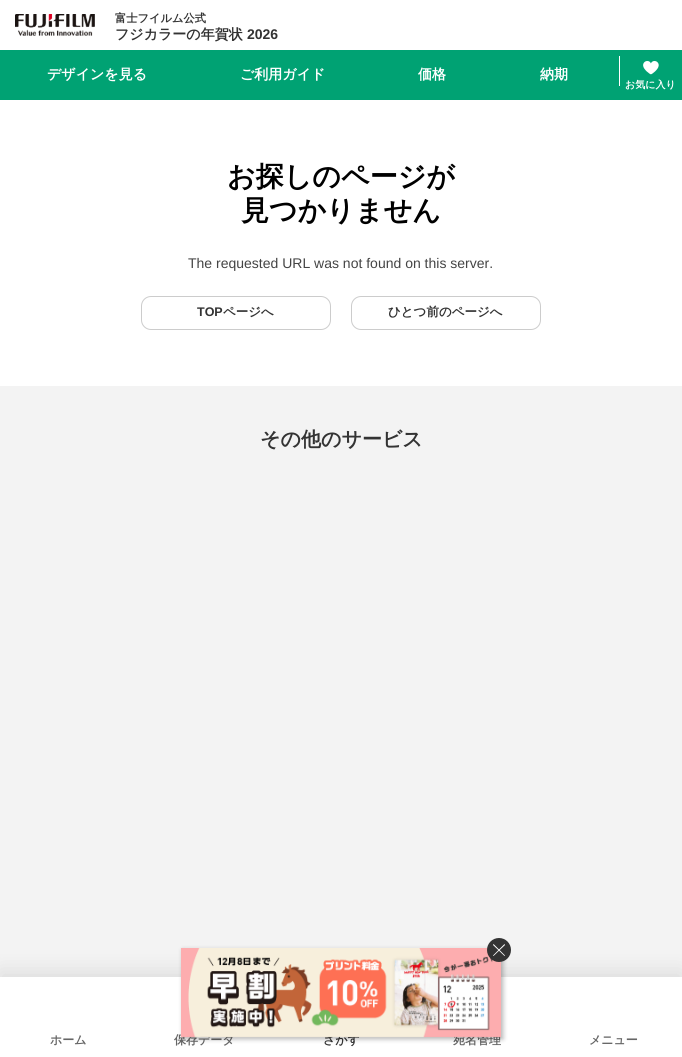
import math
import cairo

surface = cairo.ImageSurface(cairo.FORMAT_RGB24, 682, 1057)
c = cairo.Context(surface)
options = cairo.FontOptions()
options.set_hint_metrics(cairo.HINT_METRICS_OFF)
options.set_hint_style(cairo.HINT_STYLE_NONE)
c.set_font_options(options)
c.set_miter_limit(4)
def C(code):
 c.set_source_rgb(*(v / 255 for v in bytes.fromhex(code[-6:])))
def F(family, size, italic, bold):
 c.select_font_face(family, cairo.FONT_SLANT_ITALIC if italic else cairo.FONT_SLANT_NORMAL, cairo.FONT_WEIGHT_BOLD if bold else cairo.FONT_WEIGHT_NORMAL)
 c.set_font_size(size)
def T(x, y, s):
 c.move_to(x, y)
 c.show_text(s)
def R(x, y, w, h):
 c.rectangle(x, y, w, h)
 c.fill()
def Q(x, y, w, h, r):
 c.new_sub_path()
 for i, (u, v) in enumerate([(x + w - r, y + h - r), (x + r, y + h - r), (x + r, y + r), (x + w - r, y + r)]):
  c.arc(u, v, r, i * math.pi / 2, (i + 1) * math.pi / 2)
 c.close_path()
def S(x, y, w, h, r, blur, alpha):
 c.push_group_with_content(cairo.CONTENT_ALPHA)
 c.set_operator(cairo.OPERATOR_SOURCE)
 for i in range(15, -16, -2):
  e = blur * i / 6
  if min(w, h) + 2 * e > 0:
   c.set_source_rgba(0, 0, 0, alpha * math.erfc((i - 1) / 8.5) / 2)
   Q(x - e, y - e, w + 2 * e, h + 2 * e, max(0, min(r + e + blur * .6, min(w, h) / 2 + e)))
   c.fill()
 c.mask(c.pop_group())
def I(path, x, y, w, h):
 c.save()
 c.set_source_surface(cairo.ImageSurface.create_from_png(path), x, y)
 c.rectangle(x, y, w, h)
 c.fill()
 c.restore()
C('ffffff')
c.paint()
I('1.png',15,14,80,22)
F('WenQuanYi Zen Hei',11.25,0,1)
C('333333')
T(115,22,'富士フイルム公式')
F('WenQuanYi Zen Hei',14,0,1)
T(115,39,'フジカラーの年賀状')
F('Liberation Sans',14,0,1)
T(247,39,'2026')
C('00a273')
R(0,50,682,50)
F('WenQuanYi Zen Hei',14,0,1)
C('ffffff')
T(47,79,'デザインを見る')
T(240,79,'ご利用ガイド')
T(418,79,'価格')
T(540,79,'納期')
R(619,56,1,30)
I('2.png',643,61,16,14)
F('WenQuanYi Zen Hei',10,0,1)
T(625,88,'お気に入り')
F('WenQuanYi Zen Hei',28,0,1)
C('000000')
T(227,186,'お探しのページが')
T(241,220,'見つかりません')
F('Liberation Sans',14,0,0)
C('444444')
T(188,268,'The requested URL was not found on this server.')
Q(141.5,296.5,189,33,9.5)
C('cccccc')
c.set_line_width(1)
c.stroke()
F('Liberation Sans',12.5,0,1)
C('333333')
T(197,316,'TOP')
F('WenQuanYi Zen Hei',12.5,0,1)
T(223,316,'ページへ')
Q(351.5,296.5,189,33,9.5)
C('cccccc')
c.stroke()
C('333333')
T(388,316,'ひとつ前のページへ')
C('f3f3f3')
R(0,386,682,591)
F('WenQuanYi Zen Hei',20,0,1)
C('333333')
T(260,446,'その他のサービス')
C('000000')
S(0,972,682,80,0,10,.1)
C('ffffff')
R(0,977,682,80)
F('WenQuanYi Zen Hei',12,0,1)
C('666666')
T(50,1044,'ホーム')
T(174,1044,'保存データ')
C('333333')
T(323,1044,'さがす')
C('666666')
T(453,1044,'宛名管理')
T(589,1044,'メニュー')
C('000000')
S(183,950,320,89,0,2.5,.3)
I('3.png',181,948,320,90)
C('333333')
c.arc(499,950,12,0,2 * math.pi)
c.fill()
C('ffffff')
c.new_path()
c.move_to(493.5,944)
c.line_to(505,955.5)
c.line_to(504.5,956)
c.line_to(493,945)
c.close_path()
c.fill()
c.new_path()
c.move_to(493,955.5)
c.line_to(504.5,944)
c.line_to(505,945)
c.line_to(493.5,956)
c.close_path()
c.fill()
surface.write_to_png('o.png')
